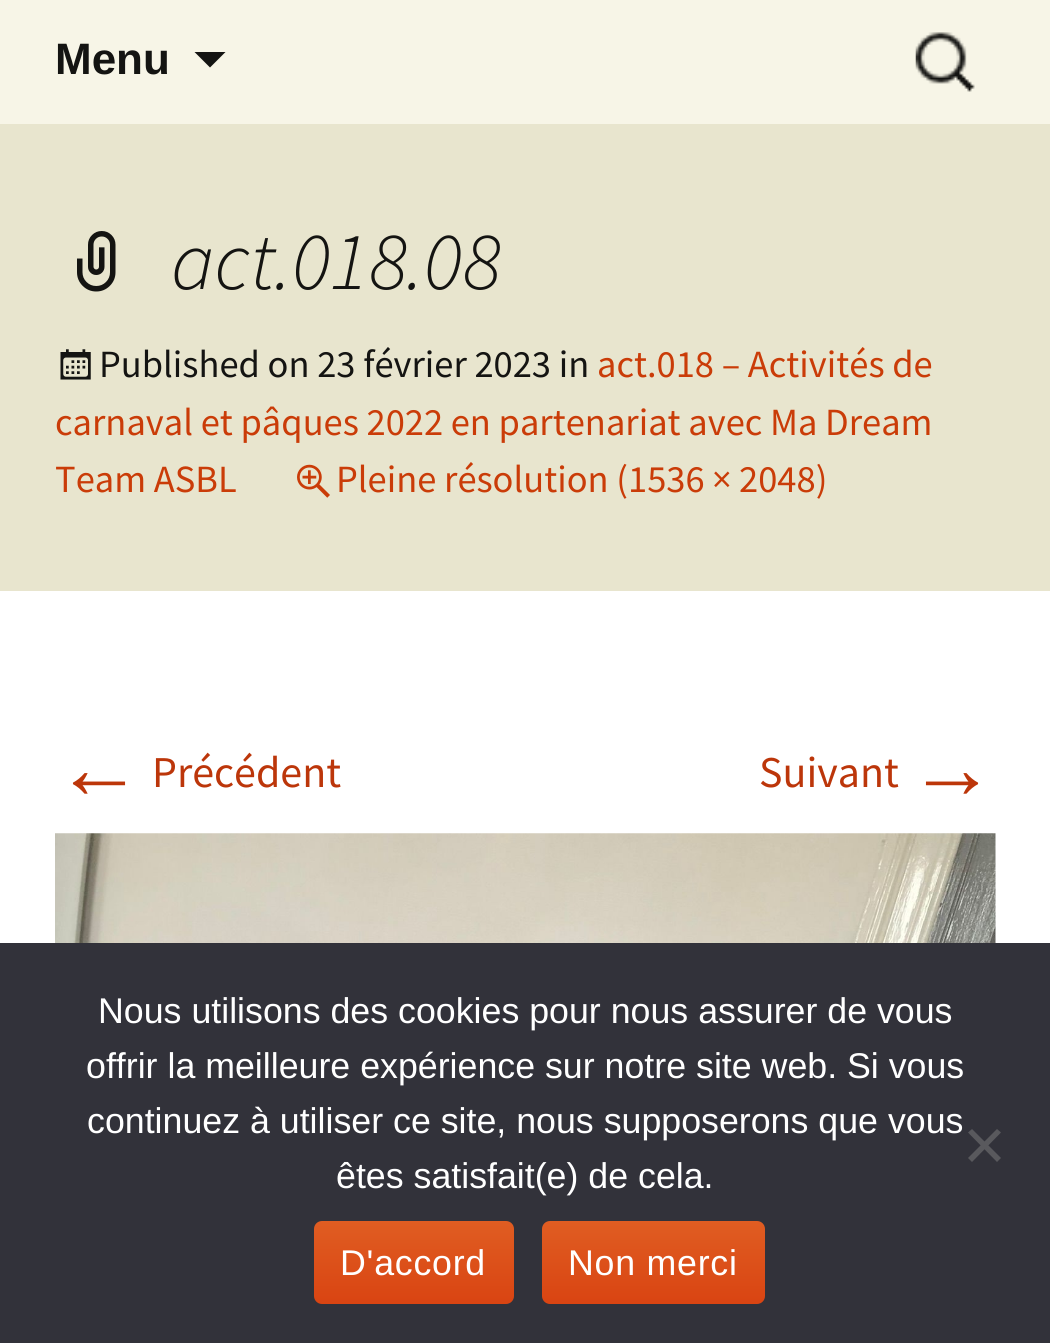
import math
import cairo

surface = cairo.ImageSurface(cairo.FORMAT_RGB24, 1050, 1343)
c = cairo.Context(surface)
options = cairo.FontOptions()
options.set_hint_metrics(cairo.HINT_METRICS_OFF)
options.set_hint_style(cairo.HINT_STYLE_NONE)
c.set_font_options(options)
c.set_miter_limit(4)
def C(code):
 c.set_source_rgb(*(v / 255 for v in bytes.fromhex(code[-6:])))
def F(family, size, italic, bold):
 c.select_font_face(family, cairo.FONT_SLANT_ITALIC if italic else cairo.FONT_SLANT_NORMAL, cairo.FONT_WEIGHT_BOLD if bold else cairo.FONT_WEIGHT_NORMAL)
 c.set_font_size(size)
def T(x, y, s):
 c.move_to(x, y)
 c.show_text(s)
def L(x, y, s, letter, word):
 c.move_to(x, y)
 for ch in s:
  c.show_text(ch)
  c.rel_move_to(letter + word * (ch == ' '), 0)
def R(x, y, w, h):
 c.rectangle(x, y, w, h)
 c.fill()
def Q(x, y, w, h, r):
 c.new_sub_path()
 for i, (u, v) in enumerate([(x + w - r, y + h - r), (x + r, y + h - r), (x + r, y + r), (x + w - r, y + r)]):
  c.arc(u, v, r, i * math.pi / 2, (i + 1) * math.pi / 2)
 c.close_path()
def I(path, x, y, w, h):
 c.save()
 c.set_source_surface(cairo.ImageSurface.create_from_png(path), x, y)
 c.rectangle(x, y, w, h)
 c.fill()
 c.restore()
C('f7f5e7')
c.paint()
F('Liberation Sans',44,0,1)
C('141412')
T(55,74,'Menu')
c.new_path()
c.move_to(194.5,52)
c.line_to(210,67.5)
c.line_to(225.5,52)
c.close_path()
c.fill()
I('1.png',915,32,60,60)
C('e8e5ce')
R(0,124,1050,467)
I('2.png',77,231,39,61)
F('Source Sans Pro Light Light',82.5,1,0)
C('141412')
T(171,289,'act.018.08')
I('3.png',60,349,31,31)
F('Source Sans Pro',38.5,0,0)
T(99,377,'Published on 23 février 2023 in')
C('ca3c08')
T(597,377,'act.018 – Activités de')
T(55,435,'carnaval et pâques 2022 en partenariat avec Ma Dream')
T(55,492,'Team ASBL')
I('4.png',297,464,33,34)
T(336,492,'Pleine résolution (1536 × 2048)')
C('ffffff')
R(0,591,1050,352)
F('Liberation Sans',88,0,0)
C('bc360a')
T(55,798,'←')
F('Source Sans Pro',44,0,0)
T(152,787,'Précédent')
T(759,787,'Suivant')
F('Liberation Sans',88,0,0)
T(908,798,'→')
I('5.png',55,833,941,110)
C('32323a')
R(0,943,1050,400)
F('Liberation Sans',35.75,0,0)
C('ffffff')
T(98,1023,'Nous utilisons des cookies pour nous assurer de vous')
T(86,1078,'offrir la meilleure expérience sur notre site web. Si vous')
T(87,1133,'continuez à utiliser ce site, nous supposerons que vous')
T(336,1188,'êtes satisfait(e) de cela.')
C('59595d')
c.new_path()
c.move_to(997,1129)
c.line_to(1001,1132.5)
c.line_to(972,1162)
c.line_to(968,1158)
c.close_path()
c.fill()
c.new_path()
c.move_to(968,1132.5)
c.line_to(972,1129)
c.line_to(1001,1158)
c.line_to(997,1162)
c.close_path()
c.fill()
gradient = cairo.LinearGradient(414,1221,414,1304)
gradient.add_color_stop_rgba(0,0.878,0.365,0.133,1)
gradient.add_color_stop_rgba(1,0.851,0.267,0.071,1)
c.set_source(gradient)
Q(314,1221,200,83,8)
c.fill()
C('ffffff')
L(340,1275,'D\'accord',.75,0)
gradient = cairo.LinearGradient(653,1221,653,1304)
gradient.add_color_stop_rgba(0,0.878,0.365,0.133,1)
gradient.add_color_stop_rgba(1,0.851,0.267,0.071,1)
c.set_source(gradient)
Q(542,1221,223,83,8)
c.fill()
C('ffffff')
L(568,1275,'Non merci',.75,0)
surface.write_to_png('o.png')
